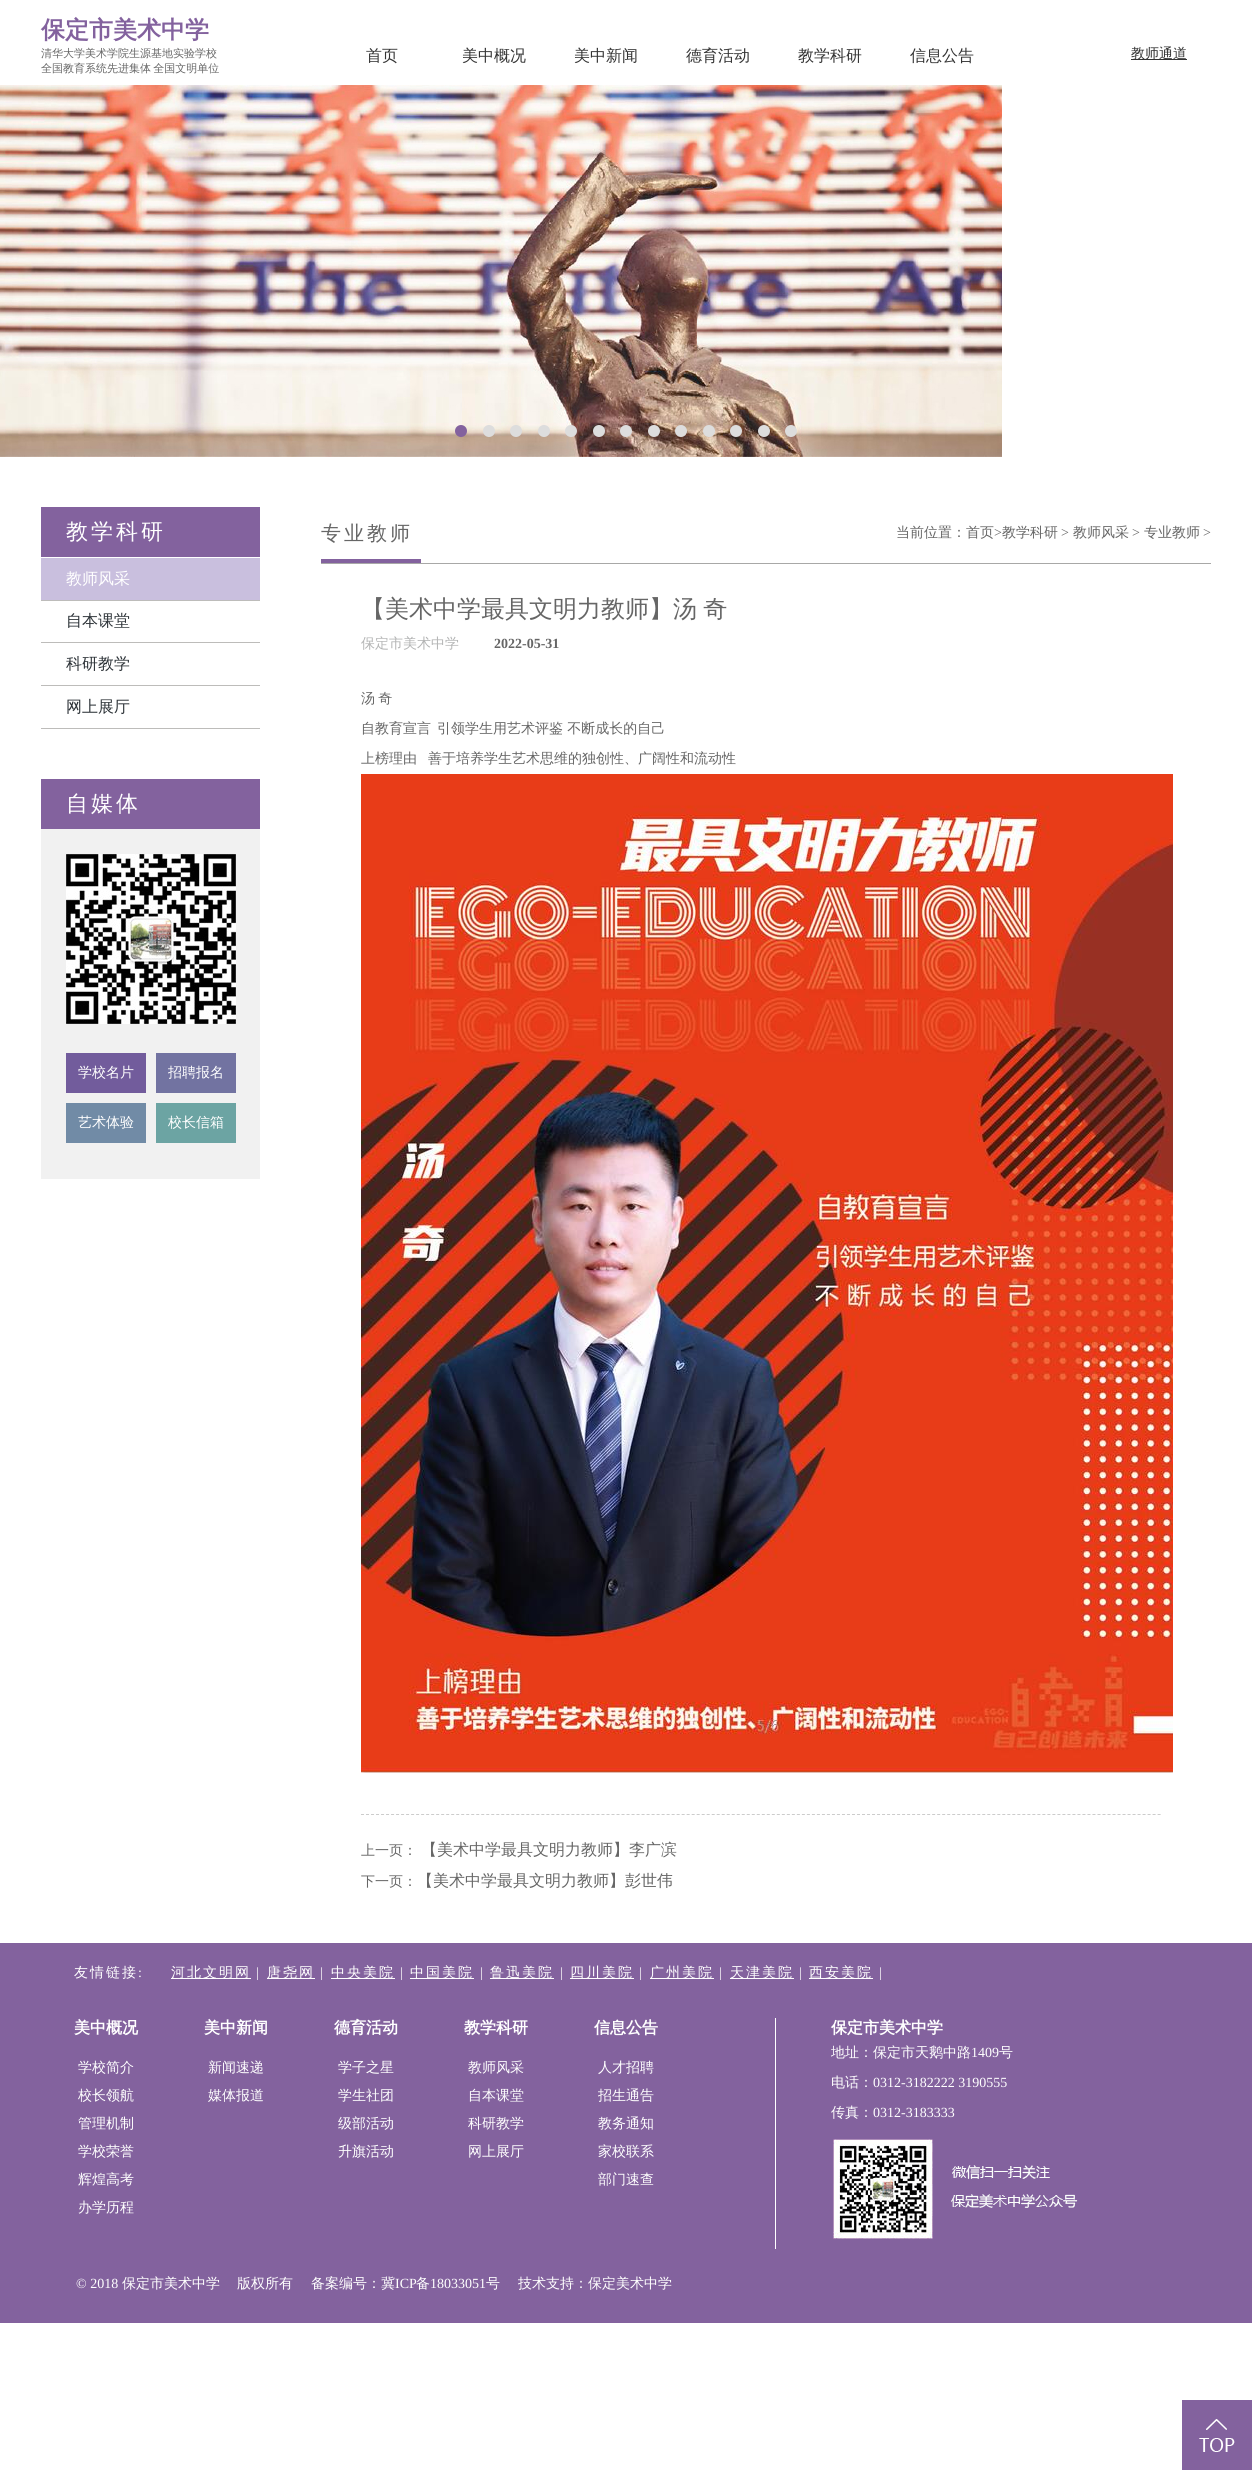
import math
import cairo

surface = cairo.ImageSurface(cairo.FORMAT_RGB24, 1252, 2470)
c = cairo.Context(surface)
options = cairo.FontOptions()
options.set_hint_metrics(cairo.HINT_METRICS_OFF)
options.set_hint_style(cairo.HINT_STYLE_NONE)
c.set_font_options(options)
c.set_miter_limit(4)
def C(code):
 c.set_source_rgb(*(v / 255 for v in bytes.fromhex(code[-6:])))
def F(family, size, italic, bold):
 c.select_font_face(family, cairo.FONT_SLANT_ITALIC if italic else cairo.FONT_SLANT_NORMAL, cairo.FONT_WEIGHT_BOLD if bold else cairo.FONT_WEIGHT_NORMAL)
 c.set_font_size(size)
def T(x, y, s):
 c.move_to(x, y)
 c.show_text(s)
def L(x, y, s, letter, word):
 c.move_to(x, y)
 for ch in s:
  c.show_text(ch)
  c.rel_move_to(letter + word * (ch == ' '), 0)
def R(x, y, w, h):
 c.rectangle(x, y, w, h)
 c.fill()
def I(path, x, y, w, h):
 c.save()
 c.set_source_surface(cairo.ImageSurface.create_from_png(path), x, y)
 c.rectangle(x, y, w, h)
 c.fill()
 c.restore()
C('ffffff')
c.paint()
F('WenQuanYi Zen Hei',24,0,1)
C('83629e')
T(41,38,'保定市美术中学')
F('WenQuanYi Zen Hei Medium',11,0,0)
C('666666')
T(41,57,'清华大学美术学院生源基地实验学校')
L(41,72,'全国教育系统先进集体 全国文明单位',0,-1)
F('WenQuanYi Zen Hei Medium',16,0,0)
C('333333')
T(366,61,'首页')
T(462,61,'美中概况')
T(574,61,'美中新闻')
T(686,61,'德育活动')
T(798,61,'教学科研')
T(910,61,'信息公告')
R(1131,59,56,1)
F('WenQuanYi Zen Hei Medium',14,0,0)
T(1131,58,'教师通道')
I('1.png',0,85,1002,372)
C('83629e')
c.arc(461,431,6,0,2 * math.pi)
c.fill()
C('dddddd')
c.arc(489,431,6,0,2 * math.pi)
c.fill()
c.arc(516,431,6,0,2 * math.pi)
c.fill()
c.arc(544,431,6,0,2 * math.pi)
c.fill()
c.arc(571,431,6,0,2 * math.pi)
c.fill()
c.arc(599,431,6,0,2 * math.pi)
c.fill()
c.arc(626,431,6,0,2 * math.pi)
c.fill()
c.arc(654,431,6,0,2 * math.pi)
c.fill()
c.arc(681,431,6,0,2 * math.pi)
c.fill()
c.arc(709,431,6,0,2 * math.pi)
c.fill()
c.arc(736,431,6,0,2 * math.pi)
c.fill()
c.arc(764,431,6,0,2 * math.pi)
c.fill()
c.arc(791,431,6,0,2 * math.pi)
c.fill()
C('83629e')
R(41,507,219,50)
F('WenQuanYi Zen Hei Medium',22,0,0)
C('ffffff')
L(66,539,'教学科研',3,0)
C('c9bfde')
R(41,558,219,42)
C('bdbcba')
R(41,600,219,1)
F('WenQuanYi Zen Hei Medium',16,0,0)
C('ffffff')
T(66,584,'教师风采')
C('bdbcba')
R(41,642,219,1)
C('2d3338')
T(66,626,'自本课堂')
C('bdbcba')
R(41,685,219,1)
C('2d3338')
T(66,669,'科研教学')
C('bdbcba')
R(41,728,219,1)
C('2d3338')
T(66,712,'网上展厅')
C('f1f1f1')
R(41,829,219,350)
C('83629e')
R(41,779,219,50)
F('WenQuanYi Zen Hei Medium',22,0,0)
C('ffffff')
L(66,811,'自媒体',3,0)
I('2.png',66,854,170,170)
C('725c9c')
R(66,1053,80,40)
F('WenQuanYi Zen Hei Medium',14,0,0)
C('ffffff')
T(78,1077,'学校名片')
C('7273a1')
R(156,1053,80,40)
C('ffffff')
T(168,1077,'招聘报名')
C('718ba6')
R(66,1103,80,40)
C('ffffff')
T(78,1127,'艺术体验')
C('6ca4a3')
R(156,1103,80,40)
C('ffffff')
T(168,1127,'校长信箱')
F('WenQuanYi Zen Hei Medium',20,0,0)
C('666666')
L(321,540,'专业教师',3,0)
F('WenQuanYi Zen Hei Medium',14,0,0)
T(896,537,'当前位置：首页')
F('Liberation Serif',14,0,0)
T(994,537,'>')
F('WenQuanYi Zen Hei Medium',14,0,0)
T(1002,537,'教学科研')
F('Liberation Serif',14,0,0)
T(1061,537,'>')
F('WenQuanYi Zen Hei Medium',14,0,0)
T(1073,537,'教师风采')
F('Liberation Serif',14,0,0)
T(1132,537,'>')
F('WenQuanYi Zen Hei Medium',14,0,0)
T(1144,537,'专业教师')
F('Liberation Serif',14,0,0)
T(1203,537,'>')
C('a8a8a7')
R(321,563,890,1)
C('83629e')
R(321,559,100,4)
F('WenQuanYi Zen Hei Medium',24,0,0)
C('666666')
L(361,617,'【美术中学最具文明力教师】汤 奇',0,-1)
F('WenQuanYi Zen Hei Medium',14,0,0)
C('b3b4b4')
T(361,648,'保定市美术中学')
F('Liberation Serif',14,0,1)
C('666666')
T(494,648,'2022-05-31')
F('WenQuanYi Zen Hei Medium',14,0,0)
L(361,703,'汤 奇',0,-1)
T(361,733,'自教育宣言')
T(437,733,'引领学生用艺术评鉴 不断成长的自己')
T(361,763,'上榜理由')
T(428,763,'善于培养学生艺术思维的独创性、广阔性和流动性')
I('3.png',361,774,812,999)
c.new_path()
c.move_to(361,1814.5)
c.line_to(1161,1814.5)
C('cccccc')
c.set_line_width(1)
c.set_dash([3,2.01])
c.stroke()
C('666666')
T(361,1855,'上一页：')
F('WenQuanYi Zen Hei Medium',16,0,0)
T(421,1855,'【美术中学最具文明力教师】李广滨')
F('WenQuanYi Zen Hei Medium',14,0,0)
T(361,1886,'下一页：')
F('WenQuanYi Zen Hei Medium',16,0,0)
T(417,1886,'【美术中学最具文明力教师】彭世伟')
C('83629e')
R(0,1943,1252,380)
F('WenQuanYi Zen Hei Medium',14,0,0)
C('ffffff')
L(74,1977,'友情链接',2,0)
F('Liberation Serif',14,0,0)
L(138,1977,':',2,0)
R(171,1978,80,1)
F('WenQuanYi Zen Hei Medium',14,0,0)
L(171,1977,'河北文明网',2,0)
F('Liberation Serif',14,0,0)
L(256,1977,'|',2,0)
R(267,1978,48,1)
F('WenQuanYi Zen Hei Medium',14,0,0)
L(267,1977,'唐尧网',2,0)
F('Liberation Serif',14,0,0)
L(320,1977,'|',2,0)
R(331,1978,64,1)
F('WenQuanYi Zen Hei Medium',14,0,0)
L(331,1977,'中央美院',2,0)
F('Liberation Serif',14,0,0)
L(400,1977,'|',2,0)
R(410,1978,64,1)
F('WenQuanYi Zen Hei Medium',14,0,0)
L(410,1977,'中国美院',2,0)
F('Liberation Serif',14,0,0)
L(480,1977,'|',2,0)
R(490,1978,64,1)
F('WenQuanYi Zen Hei Medium',14,0,0)
L(490,1977,'鲁迅美院',2,0)
F('Liberation Serif',14,0,0)
L(560,1977,'|',2,0)
R(570,1978,64,1)
F('WenQuanYi Zen Hei Medium',14,0,0)
L(570,1977,'四川美院',2,0)
F('Liberation Serif',14,0,0)
L(639,1977,'|',2,0)
R(650,1978,64,1)
F('WenQuanYi Zen Hei Medium',14,0,0)
L(650,1977,'广州美院',2,0)
F('Liberation Serif',14,0,0)
L(719,1977,'|',2,0)
R(730,1978,64,1)
F('WenQuanYi Zen Hei Medium',14,0,0)
L(730,1977,'天津美院',2,0)
F('Liberation Serif',14,0,0)
L(799,1977,'|',2,0)
R(809,1978,64,1)
F('WenQuanYi Zen Hei Medium',14,0,0)
L(809,1977,'西安美院',2,0)
F('Liberation Serif',14,0,0)
L(879,1977,'|',2,0)
F('WenQuanYi Zen Hei',16,0,1)
T(74,2033,'美中概况')
F('WenQuanYi Zen Hei Medium',14,0,0)
T(78,2072,'学校简介')
T(78,2100,'校长领航')
T(78,2128,'管理机制')
T(78,2156,'学校荣誉')
T(78,2184,'辉煌高考')
T(78,2212,'办学历程')
F('WenQuanYi Zen Hei',16,0,1)
T(204,2033,'美中新闻')
F('WenQuanYi Zen Hei Medium',14,0,0)
T(208,2072,'新闻速递')
T(208,2100,'媒体报道')
F('WenQuanYi Zen Hei',16,0,1)
T(334,2033,'德育活动')
F('WenQuanYi Zen Hei Medium',14,0,0)
T(338,2072,'学子之星')
T(338,2100,'学生社团')
T(338,2128,'级部活动')
T(338,2156,'升旗活动')
F('WenQuanYi Zen Hei',16,0,1)
T(464,2033,'教学科研')
F('WenQuanYi Zen Hei Medium',14,0,0)
T(468,2072,'教师风采')
T(468,2100,'自本课堂')
T(468,2128,'科研教学')
T(468,2156,'网上展厅')
F('WenQuanYi Zen Hei',16,0,1)
T(594,2033,'信息公告')
F('WenQuanYi Zen Hei Medium',14,0,0)
T(598,2072,'人才招聘')
T(598,2100,'招生通告')
T(598,2128,'教务通知')
T(598,2156,'家校联系')
T(598,2184,'部门速查')
R(775,2018,1,231)
F('WenQuanYi Zen Hei',16,0,1)
T(831,2033,'保定市美术中学')
F('WenQuanYi Zen Hei Medium',14,0,0)
T(831,2057,'地址：保定市天鹅中路')
F('Liberation Serif',14,0,0)
T(971,2057,'1409')
F('WenQuanYi Zen Hei Medium',14,0,0)
T(999,2057,'号')
T(831,2087,'电话：')
F('Liberation Serif',14,0,0)
T(873,2087,'0312-3182222 3190555')
F('WenQuanYi Zen Hei Medium',14,0,0)
T(831,2117,'传真：')
F('Liberation Serif',14,0,0)
T(873,2117,'0312-3183333')
I('4.png',833,2139,245,100)
T(76,2288,'© 2018')
F('WenQuanYi Zen Hei Medium',14,0,0)
T(122,2288,'保定市美术中学')
T(237,2288,'版权所有')
T(311,2288,'备案编号：冀')
F('Liberation Serif',14,0,0)
T(395,2288,'ICP')
F('WenQuanYi Zen Hei Medium',14,0,0)
T(416,2288,'备')
F('Liberation Serif',14,0,0)
T(430,2288,'18033051')
F('WenQuanYi Zen Hei Medium',14,0,0)
T(486,2288,'号')
T(518,2288,'技术支持：保定美术中学')
C('83629e')
R(1182,2400,70,70)
I('5.png',1199,2419,36,33)
surface.write_to_png('o.png')
